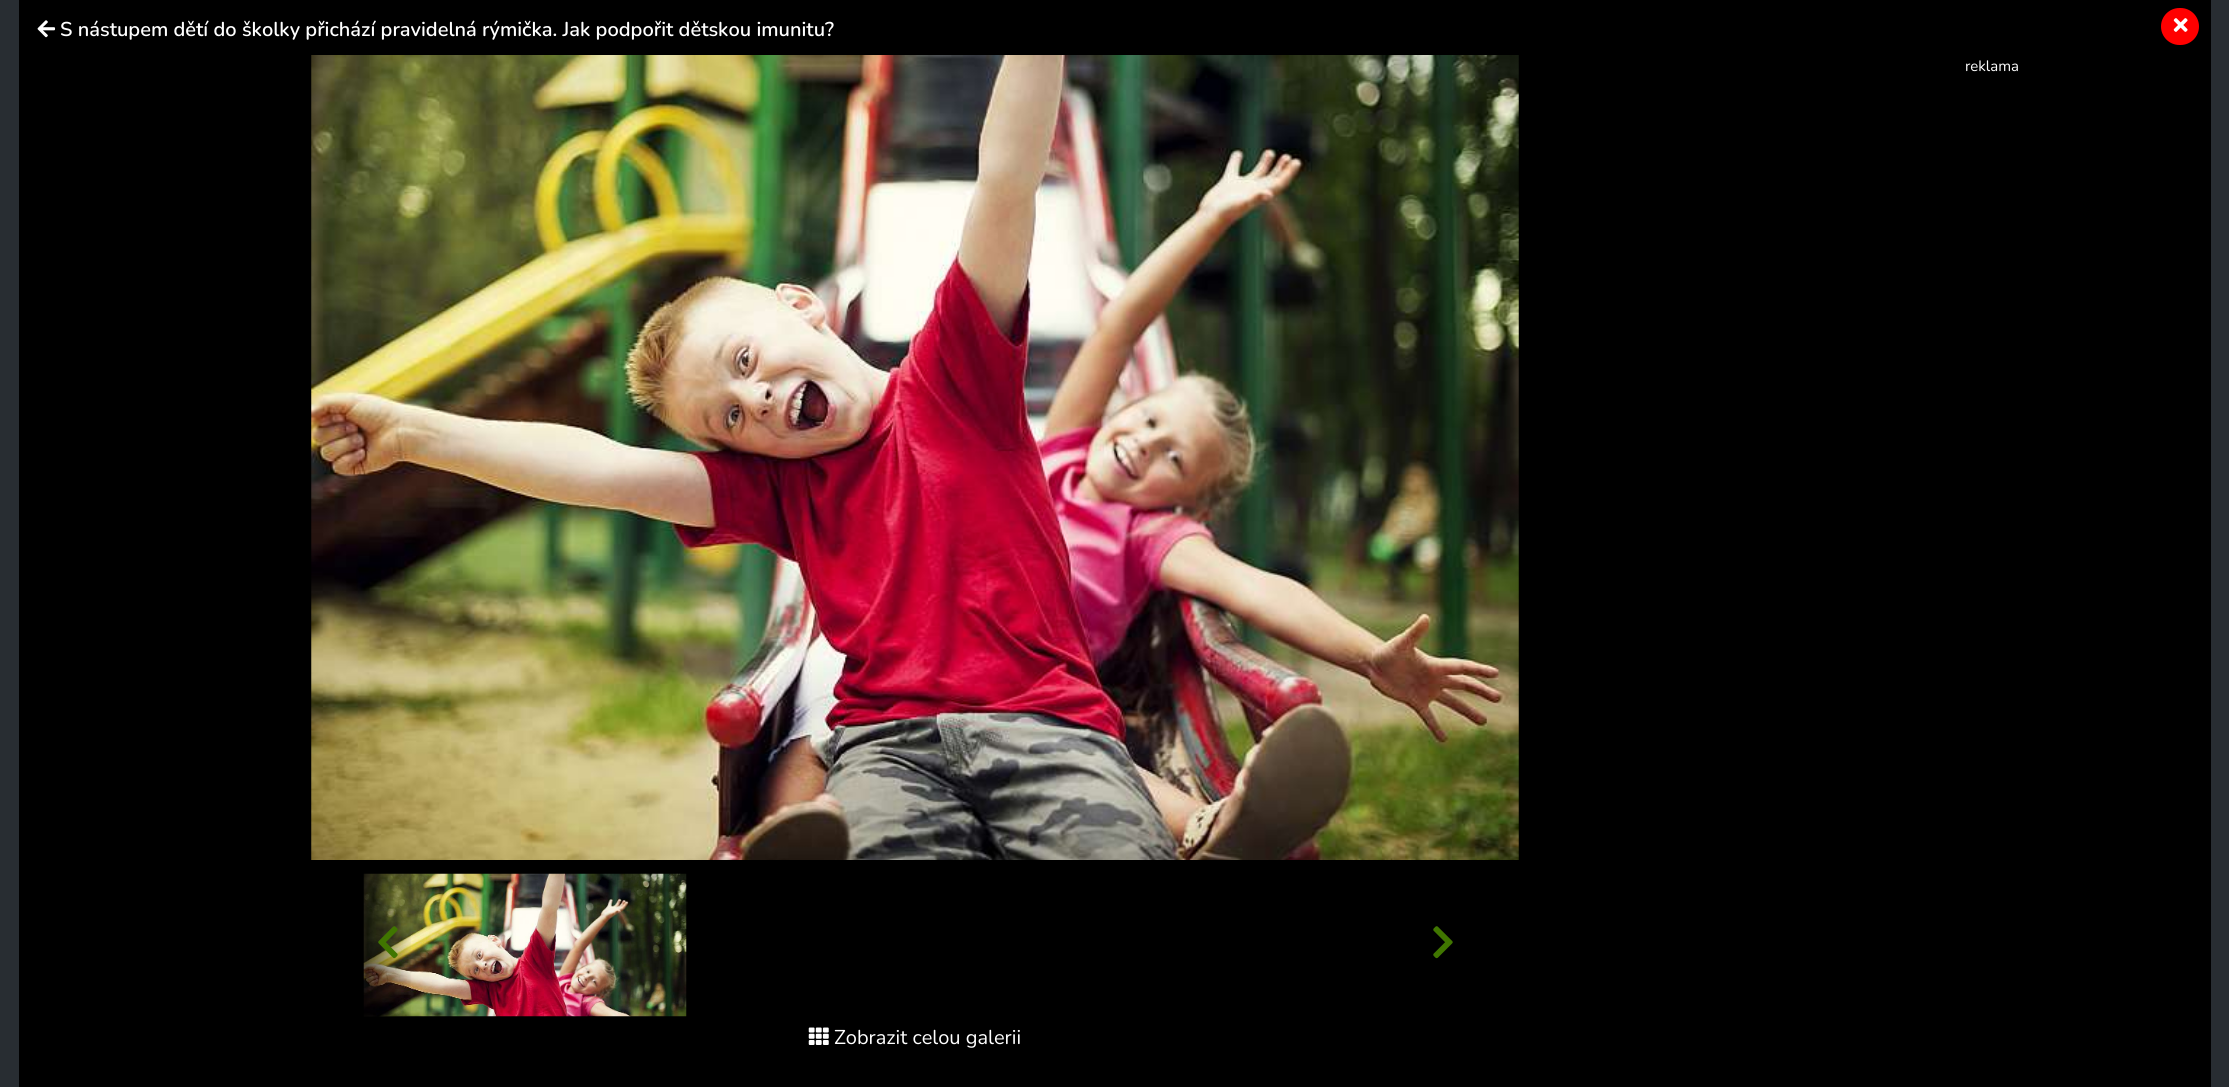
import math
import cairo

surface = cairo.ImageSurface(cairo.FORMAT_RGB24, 2229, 1087)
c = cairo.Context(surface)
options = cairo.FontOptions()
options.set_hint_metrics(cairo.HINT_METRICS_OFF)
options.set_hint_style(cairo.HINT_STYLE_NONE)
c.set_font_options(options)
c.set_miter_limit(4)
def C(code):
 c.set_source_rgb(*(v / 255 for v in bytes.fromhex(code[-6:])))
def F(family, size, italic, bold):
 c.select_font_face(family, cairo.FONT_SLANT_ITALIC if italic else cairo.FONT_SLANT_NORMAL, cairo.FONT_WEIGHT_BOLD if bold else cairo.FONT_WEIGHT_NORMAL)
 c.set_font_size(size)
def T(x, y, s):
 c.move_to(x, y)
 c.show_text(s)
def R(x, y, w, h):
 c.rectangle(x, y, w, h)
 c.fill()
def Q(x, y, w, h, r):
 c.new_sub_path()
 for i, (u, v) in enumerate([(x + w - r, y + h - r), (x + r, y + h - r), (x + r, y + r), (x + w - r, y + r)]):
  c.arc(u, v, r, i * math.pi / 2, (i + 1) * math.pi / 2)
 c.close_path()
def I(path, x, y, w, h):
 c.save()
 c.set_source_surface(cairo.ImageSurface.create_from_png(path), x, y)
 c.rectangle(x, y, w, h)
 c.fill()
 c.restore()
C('282d32')
c.paint()
C('000000')
R(19,0,2192,1087)
I('1.png',37,20,19,18)
F('Nunito SemiBold',20,0,0)
C('ffffff')
T(60,36,'S nástupem dětí do školky přichází pravidelná rýmička. Jak podpořit dětskou imunitu?')
C('ff0000')
Q(2161,8,38,37,18.5)
c.fill()
I('2.png',2173,18,15,14)
F('Nunito',15,0,0)
C('ffffff')
T(1965,71,'reklama')
I('3.png',311,55,1208,805)
I('4.png',363,873,324,144)
gradient = cairo.LinearGradient(363,944,413,944)
gradient.add_color_stop_rgba(0,0,0,0,.65)
gradient.add_color_stop_rgba(1,0,0,0,0)
c.set_source(gradient)
R(363,873,48,143)
I('5.png',378,926,20,33)
I('6.png',1433,926,20,33)
I('7.png',808,1027,21,18)
F('Nunito',20,0,0)
C('ffffff')
T(834,1044,'Zobrazit celou galerii')
surface.write_to_png('o.png')
